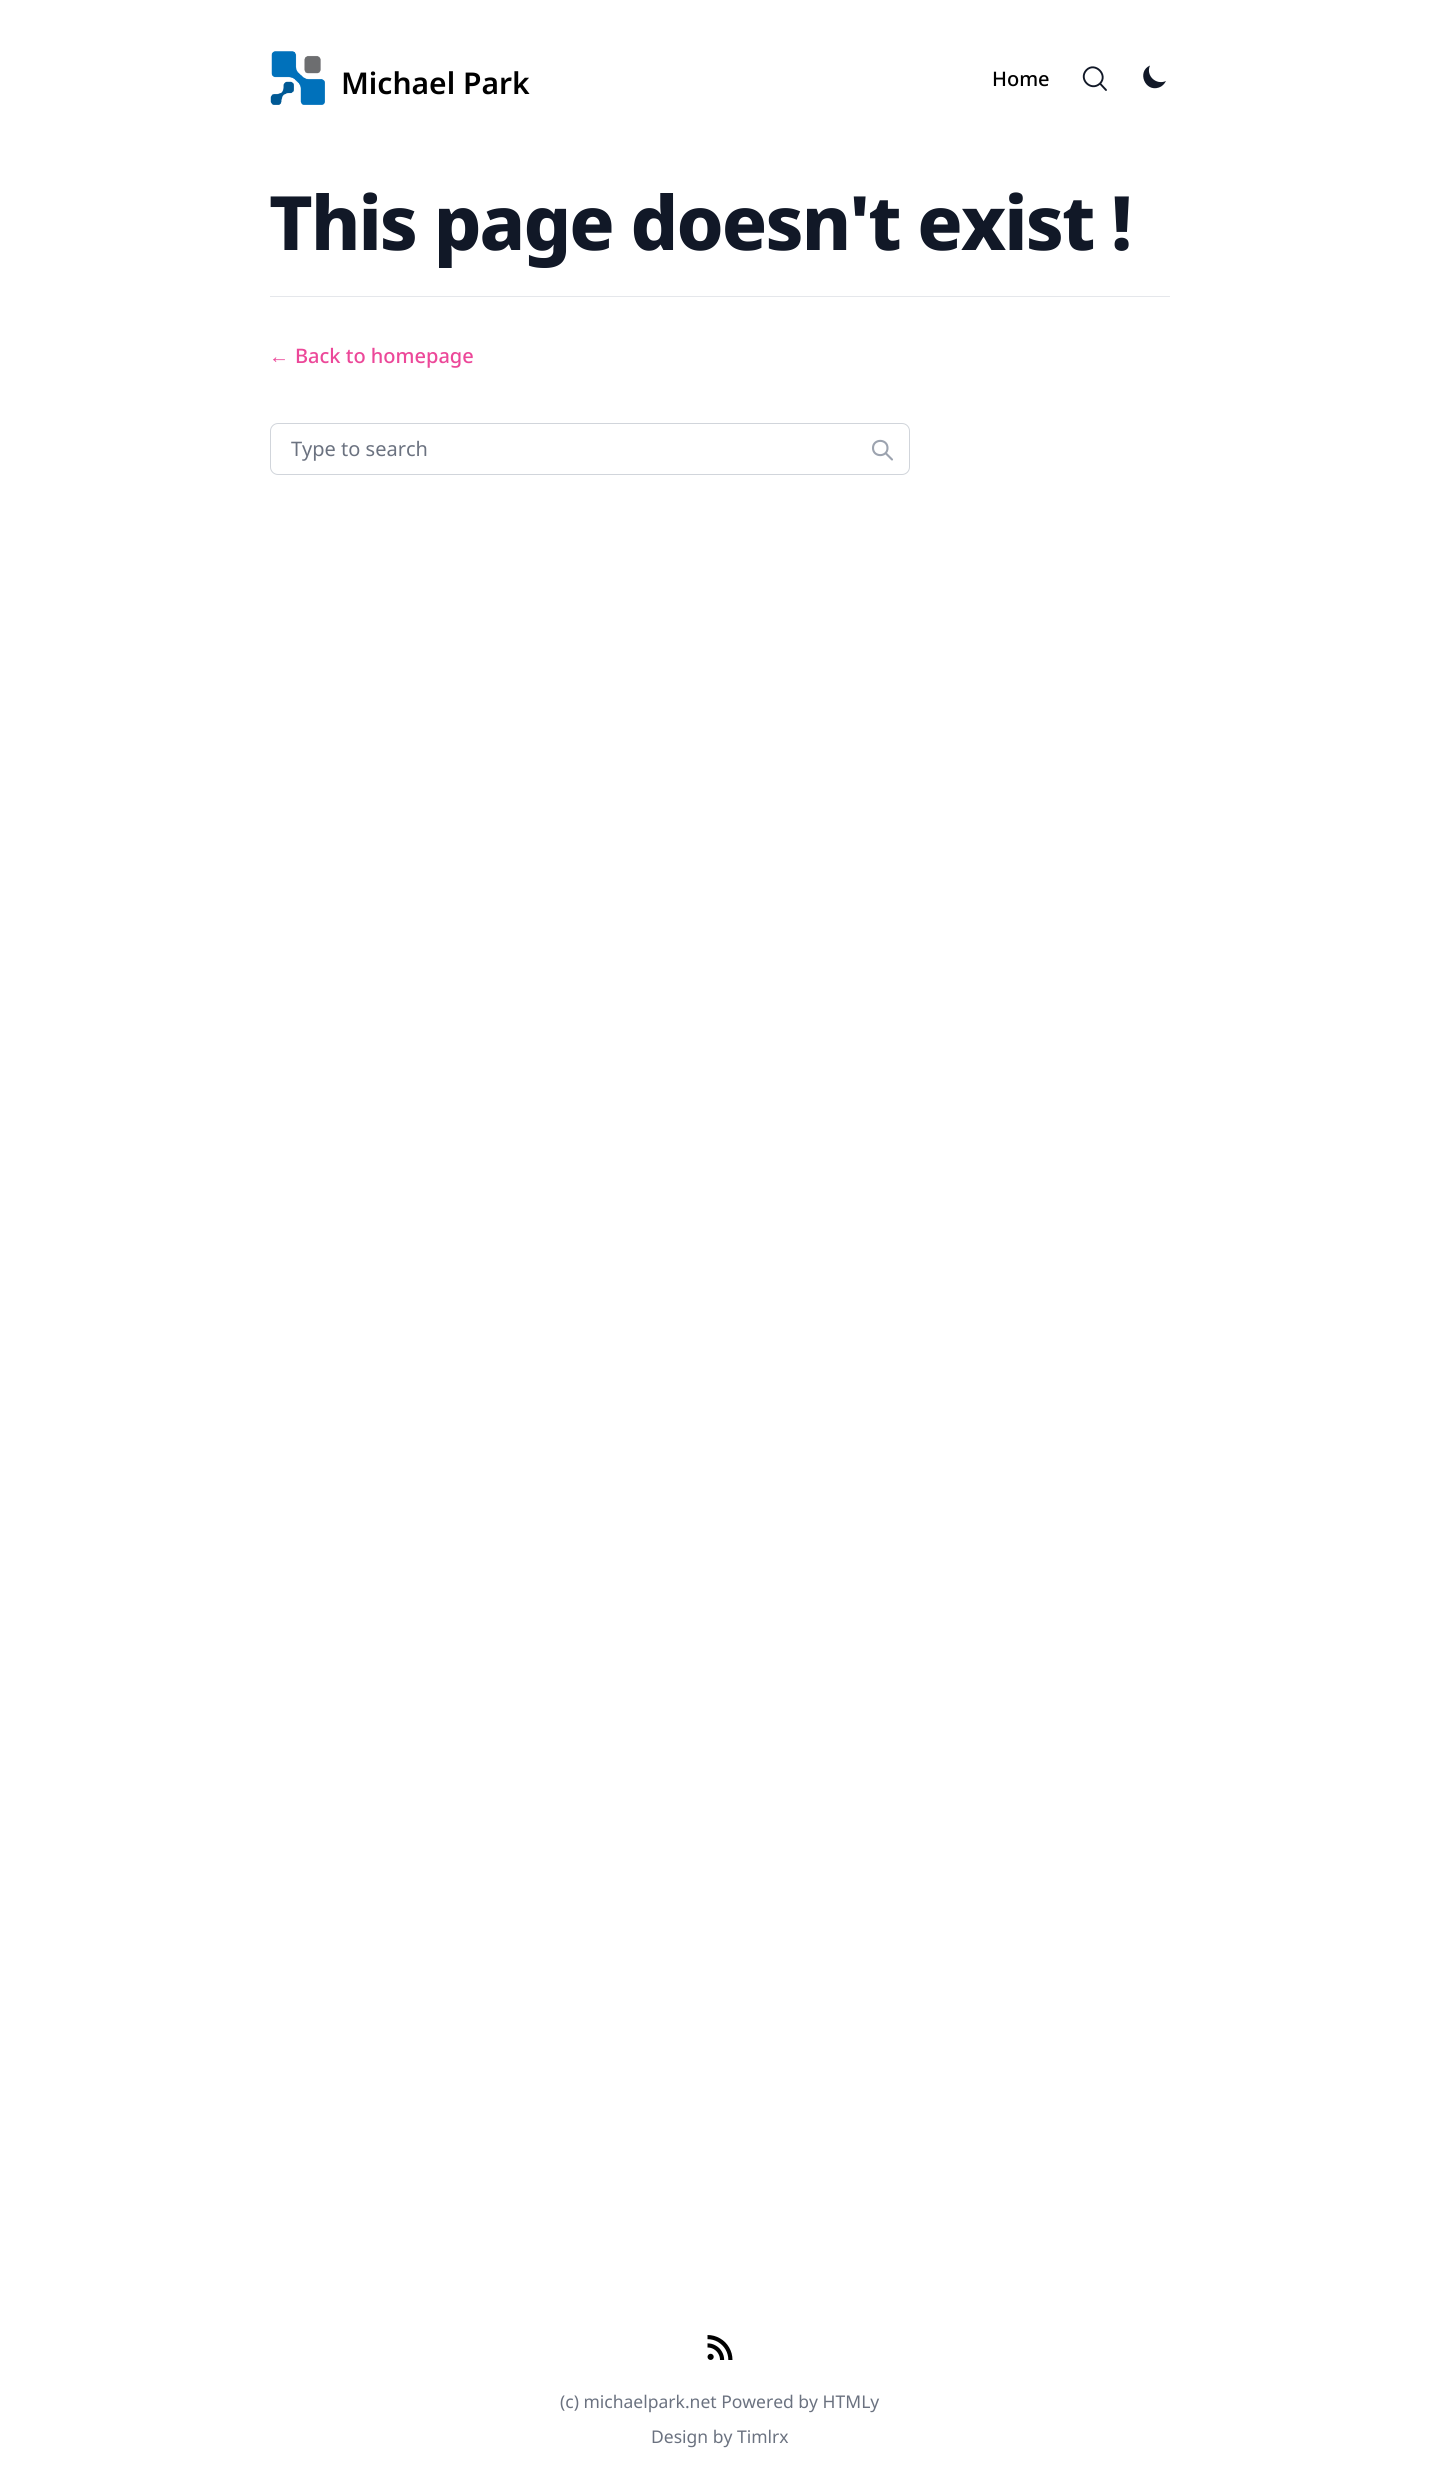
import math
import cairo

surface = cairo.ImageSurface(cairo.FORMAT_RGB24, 1438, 2488)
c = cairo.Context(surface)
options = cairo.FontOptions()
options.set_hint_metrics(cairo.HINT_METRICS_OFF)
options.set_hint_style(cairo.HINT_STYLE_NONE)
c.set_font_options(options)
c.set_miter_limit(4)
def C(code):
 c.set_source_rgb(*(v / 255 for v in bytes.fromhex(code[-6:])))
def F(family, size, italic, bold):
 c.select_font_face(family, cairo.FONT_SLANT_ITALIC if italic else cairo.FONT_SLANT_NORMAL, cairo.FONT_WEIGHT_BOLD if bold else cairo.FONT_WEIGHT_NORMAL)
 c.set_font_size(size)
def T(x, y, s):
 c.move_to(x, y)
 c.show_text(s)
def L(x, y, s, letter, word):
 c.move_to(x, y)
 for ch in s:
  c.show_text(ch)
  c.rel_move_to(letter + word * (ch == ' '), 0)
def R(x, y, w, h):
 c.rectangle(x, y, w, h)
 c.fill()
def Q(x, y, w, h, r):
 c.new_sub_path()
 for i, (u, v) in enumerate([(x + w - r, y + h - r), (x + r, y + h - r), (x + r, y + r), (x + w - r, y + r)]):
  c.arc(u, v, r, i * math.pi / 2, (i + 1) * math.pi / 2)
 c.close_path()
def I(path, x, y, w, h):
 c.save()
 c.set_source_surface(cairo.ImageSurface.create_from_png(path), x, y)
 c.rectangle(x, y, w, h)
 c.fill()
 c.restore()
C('ffffff')
c.paint()
I('1.png',270,51,55,54)
F('Noto Sans SemiBold',30,0,0)
C('000000')
T(341,94,'Michael Park')
F('Noto Sans Medium',20,0,0)
T(992,86,'Home')
c.new_path()
c.move_to(1106,90)
c.line_to(1100,83.5)
c.move_to(1100,83.5)
c.curve_to(1108.5,75,1095,61.5,1086.5,70)
c.curve_to(1078,79,1091,92,1100,83.5)
c.close_path()
C('111827')
c.set_line_width(1.9)
c.set_line_cap(cairo.LINE_CAP_ROUND)
c.set_line_join(cairo.LINE_JOIN_ROUND)
c.stroke()
c.new_path()
c.move_to(1166,81)
c.curve_to(1156,85.5,1145.5,75.5,1150,65.5)
c.curve_to(1136.5,71.5,1145,92.5,1159,87.5)
c.curve_to(1162,86.5,1164.5,84,1166,81)
c.close_path()
c.fill()
F('Noto Sans ExtraBold',75,0,0)
L(269,250,'This page doesn\'t exist !',-1.9,0)
C('e5e7eb')
R(270,296,900,1)
F('Liberation Sans',20,0,0)
C('ec4899')
T(269,363,'←')
F('Noto Sans Medium',20,0,0)
T(295,363,'Back to homepage')
Q(270.5,423.5,639,51,7.5)
C('d1d5db')
c.set_line_width(1)
c.set_line_cap(cairo.LINE_CAP_BUTT)
c.set_line_join(cairo.LINE_JOIN_MITER)
c.stroke()
F('Noto Sans',20,0,0)
C('6b7280')
T(291,456,'Type to search')
c.new_path()
c.move_to(892,459.5)
c.line_to(885.5,453)
c.move_to(887.5,448)
c.curve_to(887.5,457.5,873,457.5,873,448)
c.curve_to(873,438.5,887.5,438.5,887.5,448)
c.close_path()
C('9ca3af')
c.set_line_width(2.1)
c.set_line_cap(cairo.LINE_CAP_ROUND)
c.set_line_join(cairo.LINE_JOIN_ROUND)
c.stroke()
I('2.png',707,2335,26,25)
F('Noto Sans',17.5,0,0)
C('6b7280')
T(560,2408,'(c) michaelpark.net Powered by HTMLy')
T(651,2443,'Design by Timlrx')
surface.write_to_png('o.png')
